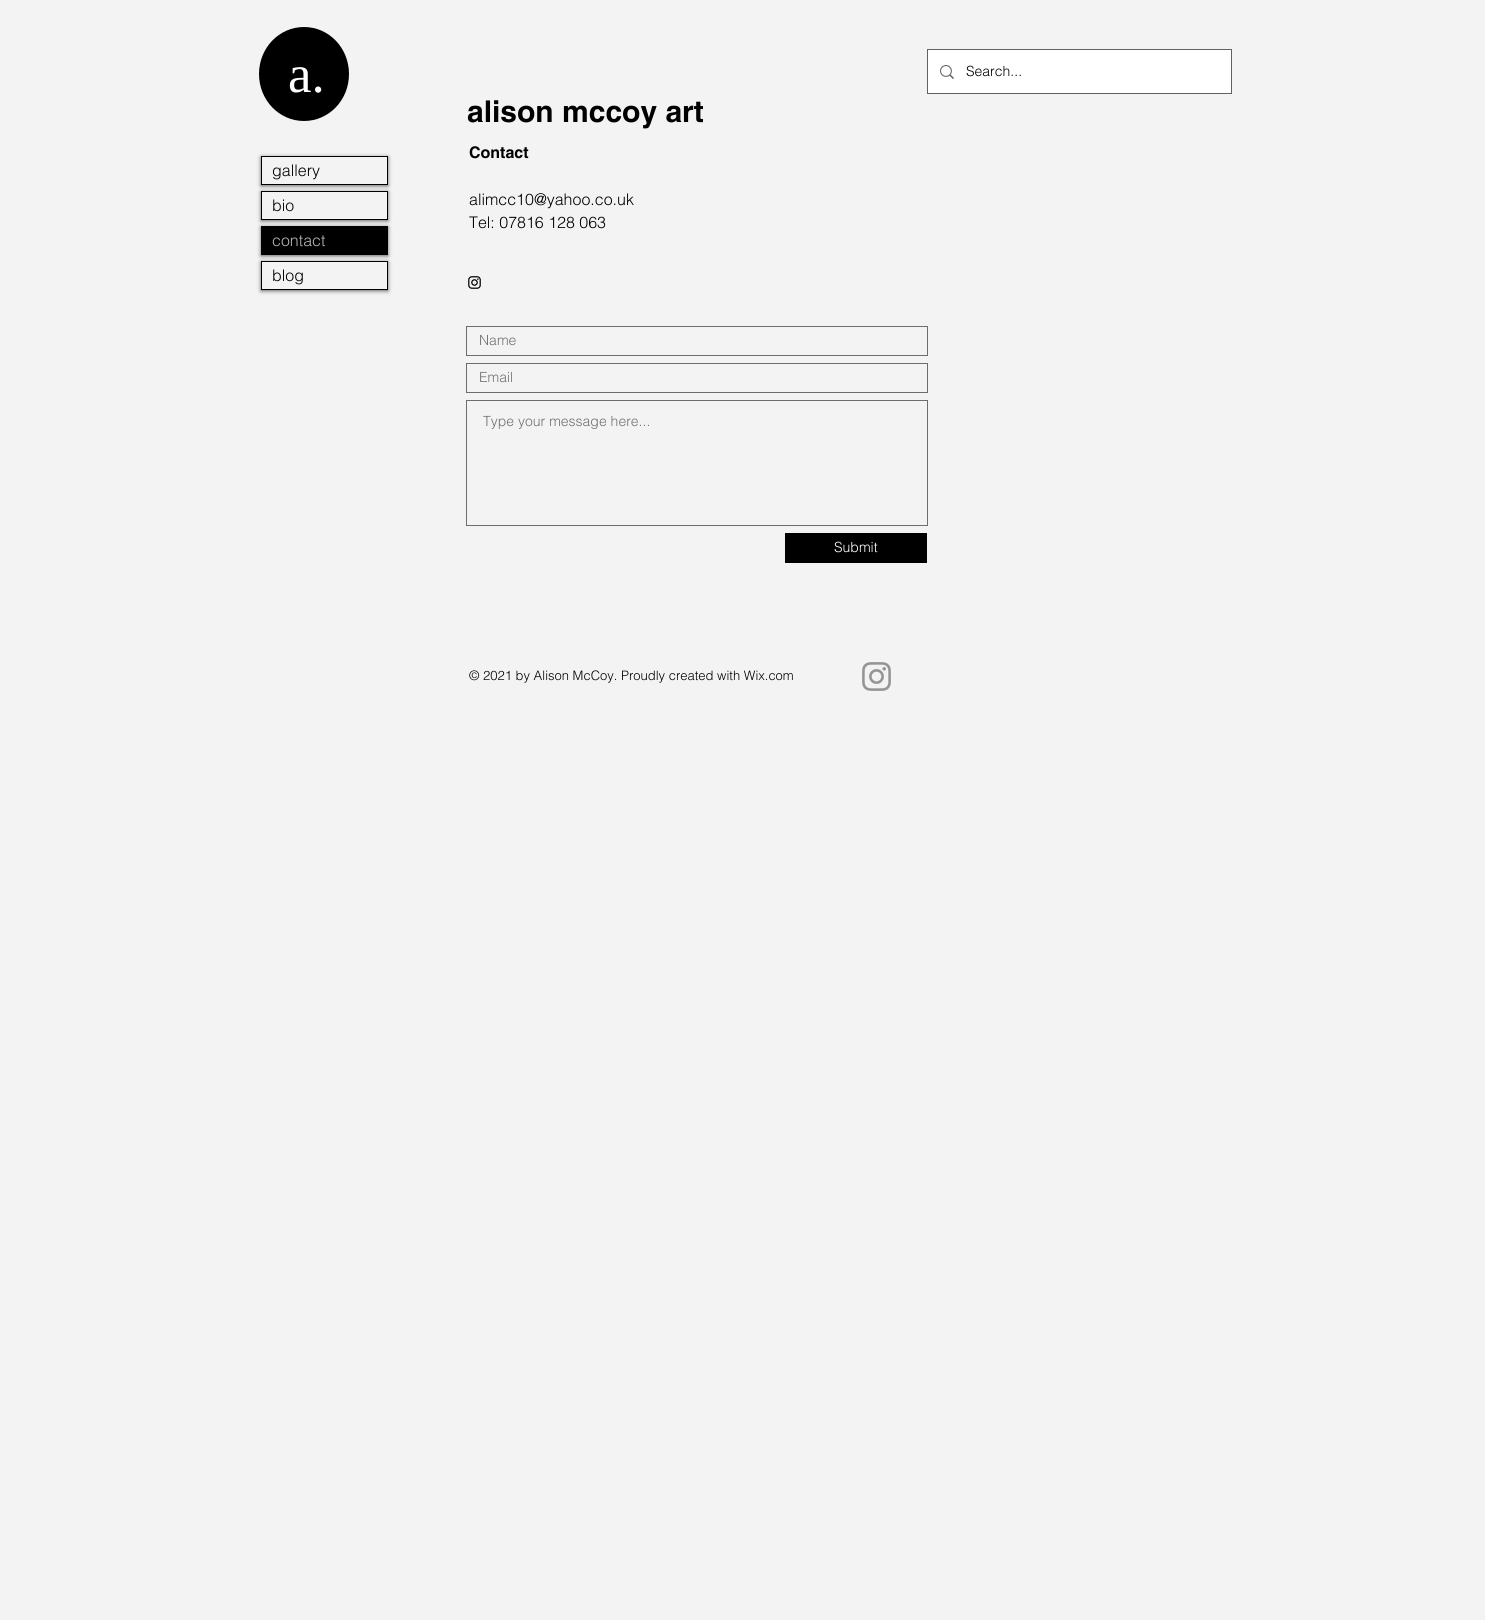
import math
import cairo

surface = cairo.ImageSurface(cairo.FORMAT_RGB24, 1485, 1620)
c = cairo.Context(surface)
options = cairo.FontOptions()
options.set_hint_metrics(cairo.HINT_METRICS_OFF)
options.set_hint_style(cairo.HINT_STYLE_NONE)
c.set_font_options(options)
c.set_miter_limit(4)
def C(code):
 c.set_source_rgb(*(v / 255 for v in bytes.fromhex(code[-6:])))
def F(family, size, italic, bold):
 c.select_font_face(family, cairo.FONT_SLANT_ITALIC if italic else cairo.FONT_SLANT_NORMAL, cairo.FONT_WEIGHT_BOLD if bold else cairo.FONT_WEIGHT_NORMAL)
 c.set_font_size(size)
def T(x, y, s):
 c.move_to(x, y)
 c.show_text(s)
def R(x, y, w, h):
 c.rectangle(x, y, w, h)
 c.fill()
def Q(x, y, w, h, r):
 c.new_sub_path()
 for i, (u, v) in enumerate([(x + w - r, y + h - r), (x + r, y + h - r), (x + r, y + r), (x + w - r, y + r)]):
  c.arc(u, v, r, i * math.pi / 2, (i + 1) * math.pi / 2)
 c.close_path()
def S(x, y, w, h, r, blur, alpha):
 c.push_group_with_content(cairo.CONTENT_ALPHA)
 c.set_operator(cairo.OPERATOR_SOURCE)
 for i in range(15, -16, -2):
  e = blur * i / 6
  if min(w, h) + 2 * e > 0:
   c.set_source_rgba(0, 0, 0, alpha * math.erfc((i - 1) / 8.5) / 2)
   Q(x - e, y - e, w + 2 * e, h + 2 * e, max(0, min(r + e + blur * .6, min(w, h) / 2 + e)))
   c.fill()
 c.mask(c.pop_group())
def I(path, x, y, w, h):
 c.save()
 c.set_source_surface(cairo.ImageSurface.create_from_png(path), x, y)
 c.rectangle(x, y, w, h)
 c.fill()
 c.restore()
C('f3f3f3')
c.paint()
C('000000')
c.new_path()
c.move_to(304,27)
c.curve_to(329,27,349,48,349,74)
c.curve_to(349,100,329,121,304,121)
c.curve_to(279,121,259,100,259,74)
c.curve_to(259,48,279,27,304,27)
c.close_path()
c.fill()
F('Liberation Serif',53,0,0)
C('ffffff')
T(288,92,'a.')
c.rectangle(927.5,49.5,304,44)
C('616161')
c.set_line_width(1)
c.stroke()
C('ffffff')
R(928,50,303,43)
I('1.png',940,65,14,14)
F('helvetica Light',14,0,0)
C('000000')
T(966,76,'Search...')
F('helvetica',30,0,1)
T(467,122,'alison mccoy art')
c.save()
c.set_fill_rule(cairo.FILL_RULE_EVEN_ODD)
c.new_path()
c.move_to(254,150)
c.line_to(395,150)
c.line_to(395,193)
c.line_to(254,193)
c.close_path()
c.move_to(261,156)
c.line_to(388,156)
c.line_to(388,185)
c.line_to(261,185)
c.close_path()
c.clip()
C('000000')
S(261,157,127,29,0,2,.6)
c.restore()
c.rectangle(261.5,156.5,126,28)
c.stroke()
F('helvetica Light',16,0,0)
T(272,176,'gallery')
c.save()
c.set_fill_rule(cairo.FILL_RULE_EVEN_ODD)
c.new_path()
c.move_to(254,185)
c.line_to(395,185)
c.line_to(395,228)
c.line_to(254,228)
c.close_path()
c.move_to(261,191)
c.line_to(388,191)
c.line_to(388,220)
c.line_to(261,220)
c.close_path()
c.clip()
C('000000')
S(261,192,127,29,0,2,.6)
c.restore()
c.rectangle(261.5,191.5,126,28)
c.stroke()
T(272,211,'bio')
C('000000')
S(261,227,127,29,0,2,.6)
C('000000')
R(261,226,127,29)
C('b9b9b9')
T(272,246,'contact')
c.save()
c.set_fill_rule(cairo.FILL_RULE_EVEN_ODD)
c.new_path()
c.move_to(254,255)
c.line_to(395,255)
c.line_to(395,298)
c.line_to(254,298)
c.close_path()
c.move_to(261,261)
c.line_to(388,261)
c.line_to(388,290)
c.line_to(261,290)
c.close_path()
c.clip()
C('000000')
S(261,262,127,29,0,2,.6)
c.restore()
c.rectangle(261.5,261.5,126,28)
C('000000')
c.stroke()
T(272,281,'blog')
F('helvetica',16,0,1)
T(469,158,'Contact')
F('helvetica Light',16,0,0)
T(469,205,'alimcc10@yahoo.co.uk')
T(469,228,'Tel: 07816 128 063')
I('2.png',468,276,13,13)
c.rectangle(466.5,326.5,461,29)
C('6d6d6d')
c.stroke()
F('helvetica Light',14,0,0)
C('717070')
T(479,345,'Name')
c.rectangle(466.5,363.5,461,29)
C('6d6d6d')
c.stroke()
C('717070')
T(479,382,'Email')
c.rectangle(466.5,400.5,461,125)
C('6d6d6d')
c.stroke()
C('717070')
T(483,426,'Type your message here...')
C('000000')
R(785,533,142,30)
C('ffffff')
T(834,552,'Submit')
F('helvetica Light',13,0,0)
C('000000')
T(469,680,'© 2021 by Alison McCoy. Proudly created with Wix.com')
I('3.png',862,662,29,29)
surface.write_to_png('o.png')
